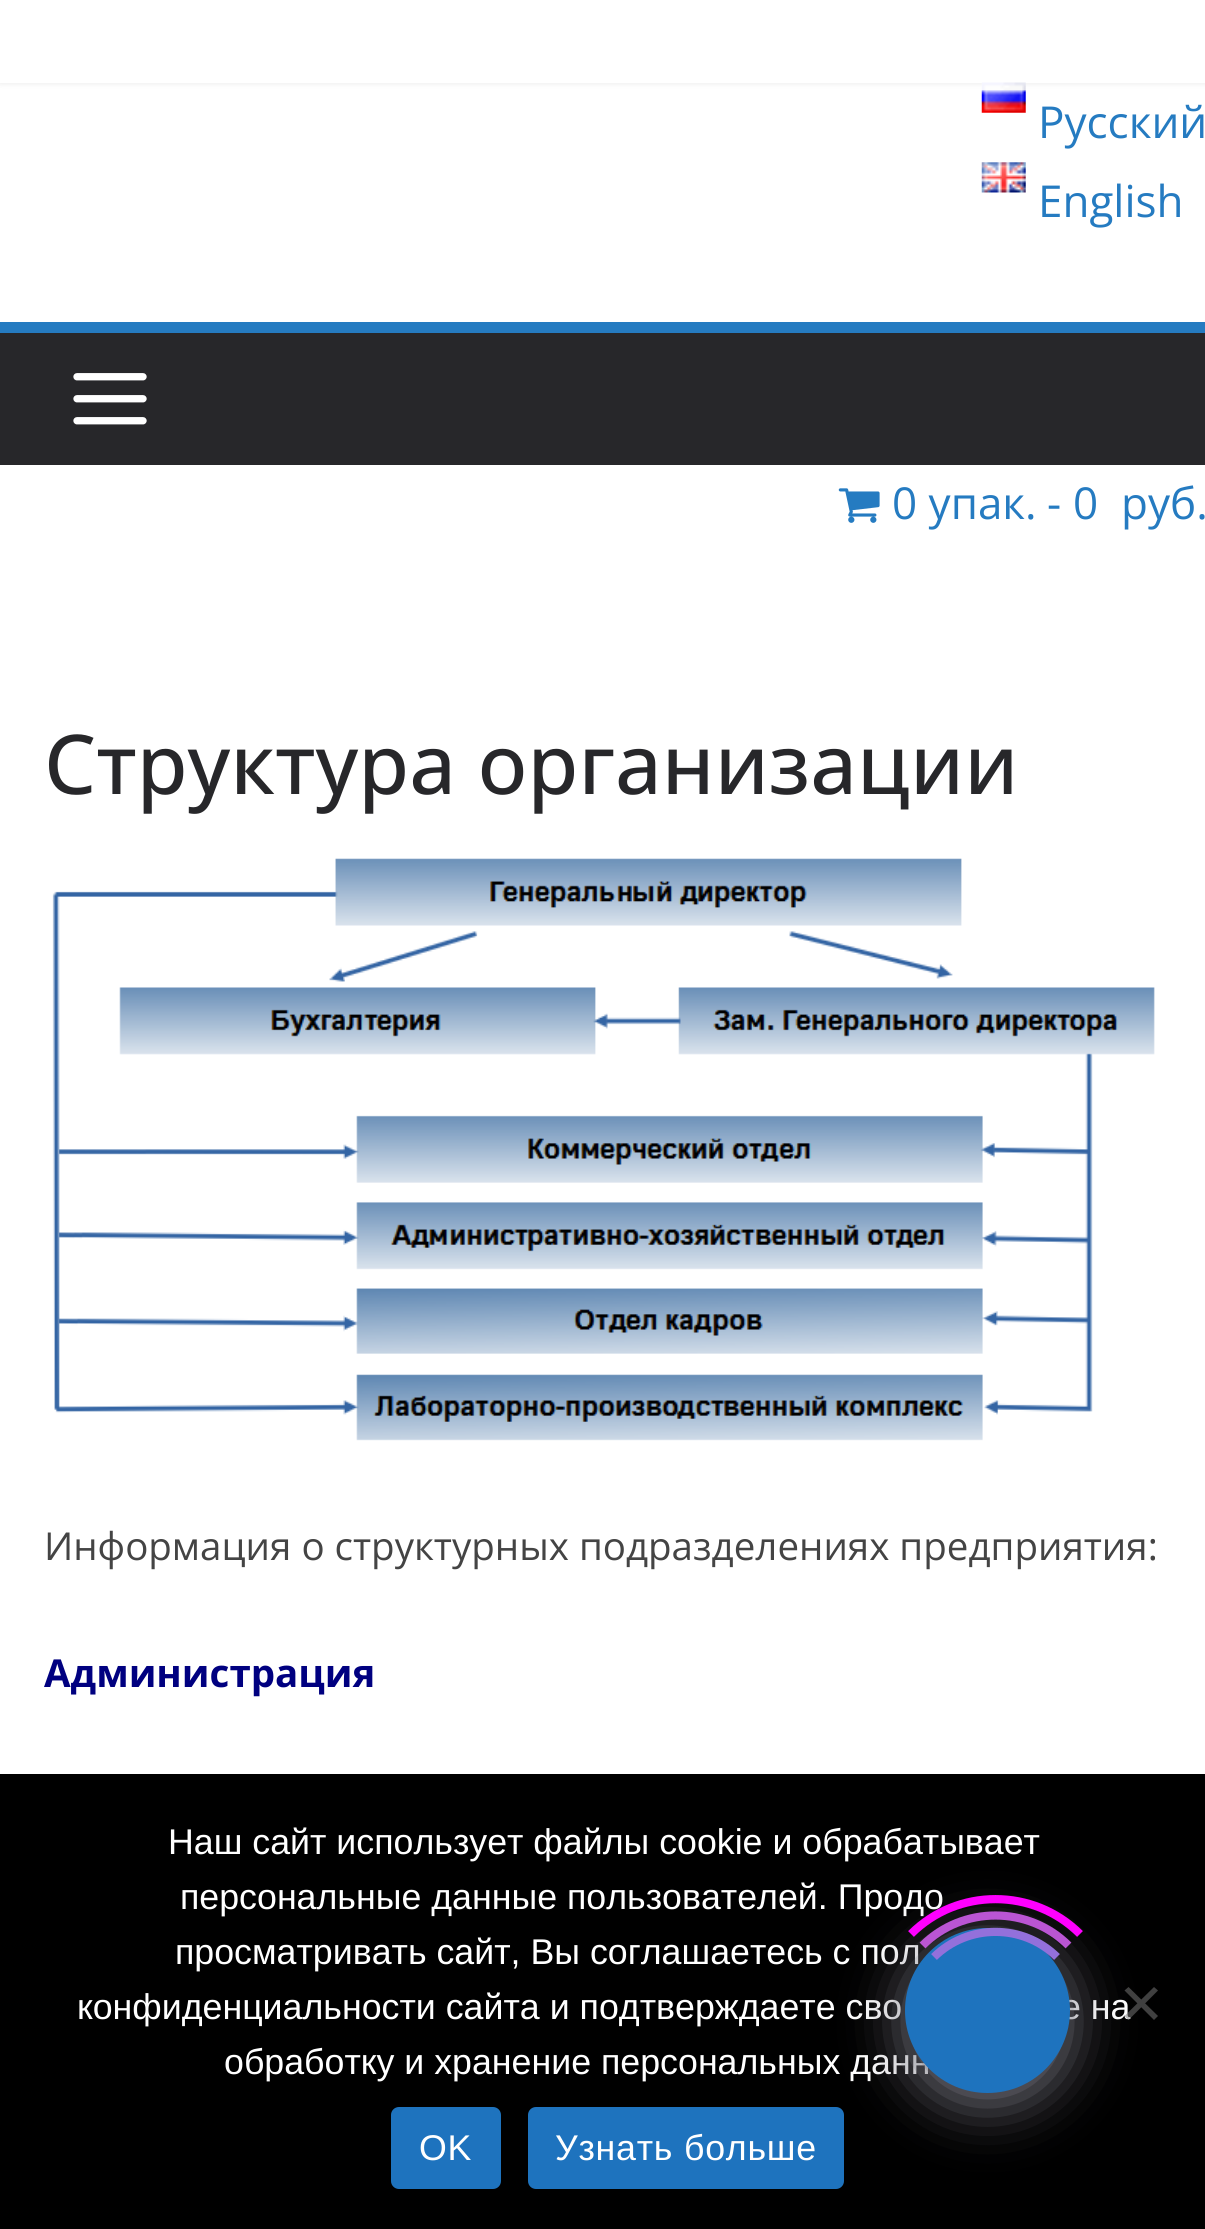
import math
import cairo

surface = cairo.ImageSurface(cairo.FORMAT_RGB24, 1205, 2229)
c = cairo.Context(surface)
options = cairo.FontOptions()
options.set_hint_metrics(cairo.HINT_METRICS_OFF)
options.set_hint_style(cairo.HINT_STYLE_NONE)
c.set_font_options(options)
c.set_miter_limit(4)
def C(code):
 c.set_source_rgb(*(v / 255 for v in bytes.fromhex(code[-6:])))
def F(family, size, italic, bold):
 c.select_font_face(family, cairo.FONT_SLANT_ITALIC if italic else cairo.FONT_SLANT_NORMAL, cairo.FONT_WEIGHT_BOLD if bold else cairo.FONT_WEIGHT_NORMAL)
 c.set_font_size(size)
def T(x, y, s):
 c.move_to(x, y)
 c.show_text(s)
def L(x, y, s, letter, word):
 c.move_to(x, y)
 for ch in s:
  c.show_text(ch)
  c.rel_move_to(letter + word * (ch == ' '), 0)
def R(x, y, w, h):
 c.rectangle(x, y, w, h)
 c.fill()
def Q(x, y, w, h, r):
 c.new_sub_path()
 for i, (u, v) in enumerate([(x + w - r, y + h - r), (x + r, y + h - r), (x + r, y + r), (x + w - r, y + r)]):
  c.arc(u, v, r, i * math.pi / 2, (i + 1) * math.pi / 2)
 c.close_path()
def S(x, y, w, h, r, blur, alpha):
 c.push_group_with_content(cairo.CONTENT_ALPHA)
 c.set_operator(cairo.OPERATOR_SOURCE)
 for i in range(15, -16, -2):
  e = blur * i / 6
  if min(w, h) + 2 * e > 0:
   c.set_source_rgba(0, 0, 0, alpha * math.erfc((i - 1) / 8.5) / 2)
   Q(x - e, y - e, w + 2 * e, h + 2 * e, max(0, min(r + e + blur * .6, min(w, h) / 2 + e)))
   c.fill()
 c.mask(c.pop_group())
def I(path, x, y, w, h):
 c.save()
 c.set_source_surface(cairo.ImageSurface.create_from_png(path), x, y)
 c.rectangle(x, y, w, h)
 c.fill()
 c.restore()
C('ffffff')
c.paint()
C('000000')
S(0,0,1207,83,0,3,.1)
C('ffffff')
R(0,0,1205,83)
I('1.png',981,82,45,31)
F('Open Sans',44,0,0)
C('257bc1')
T(1038,138,'Русский')
I('2.png',981,162,45,31)
T(1038,217,'English')
C('27272a')
R(0,333,1205,132)
C('257bc1')
R(0,322,1205,11)
I('3.png',73,373,74,52)
I('4.png',838,488,42,35)
T(892,519,'0 упак.')
T(1047,519,'-')
T(1073,519,'0  руб.')
F('Open Sans Medium',82.5,0,0)
C('27272a')
T(44,794,'Структура организации')
I('5.png',52,858,1103,583)
F('Open Sans',38.5,0,0)
C('444444')
T(44,1560,'Информация о структурных подразделениях предприятия:')
F('Open Sans',38.5,0,1)
C('000080')
T(44,1687,'Администрация')
C('000000')
R(0,1774,1205,455)
F('Liberation Sans',35.75,0,0)
C('ffffff')
T(168,1854,'Наш сайт использует файлы cookie и обрабатывает')
T(180,1909,'персональные данные пользователей. Продо')
T(175,1964,'просматривать сайт, Вы соглашаетесь с пол')
T(77,2019,'конфиденциальности сайта и подтверждаете сво')
T(1061,2019,'е на')
T(224,2074,'обработку и хранение персональных данн')
c.set_source_rgba(0.502,0.502,0.502,0.5)
c.new_path()
c.move_to(1154,1987)
c.line_to(1158,1990.5)
c.line_to(1128.5,2020)
c.line_to(1124.5,2016)
c.close_path()
c.fill()
C('404040')
c.new_path()
c.move_to(1124.5,1990.5)
c.line_to(1128.5,1987)
c.line_to(1158,2016)
c.line_to(1154,2020)
c.close_path()
c.fill()
C('1e73be')
Q(391,2107,110,82,8)
c.fill()
C('ffffff')
L(419,2160,'OK',.75,0)
C('1e73be')
Q(528,2107,316,82,8)
c.fill()
C('ffffff')
L(555,2160,'Узнать больше',.75,0)
C('767580')
S(905,1939,165,165,82.5,27.5,1)
C('1e73be')
c.arc(987.5,2010.5,82.5,0,2 * math.pi)
c.fill()
c.new_path()
c.move_to(934,1957)
c.curve_to(968,1923.5,1023,1923.5,1057,1957)
C('9370db')
c.set_line_width(8.2)
c.stroke()
c.new_path()
c.move_to(922.5,1945.5)
c.curve_to(962.5,1905.5,1028.5,1905.5,1068.5,1945.5)
C('ba55d3')
c.stroke()
c.new_path()
c.move_to(911,1934)
c.curve_to(957.5,1887.5,1033.5,1887.5,1080,1934)
C('ff00ff')
c.stroke()
surface.write_to_png('o.png')
